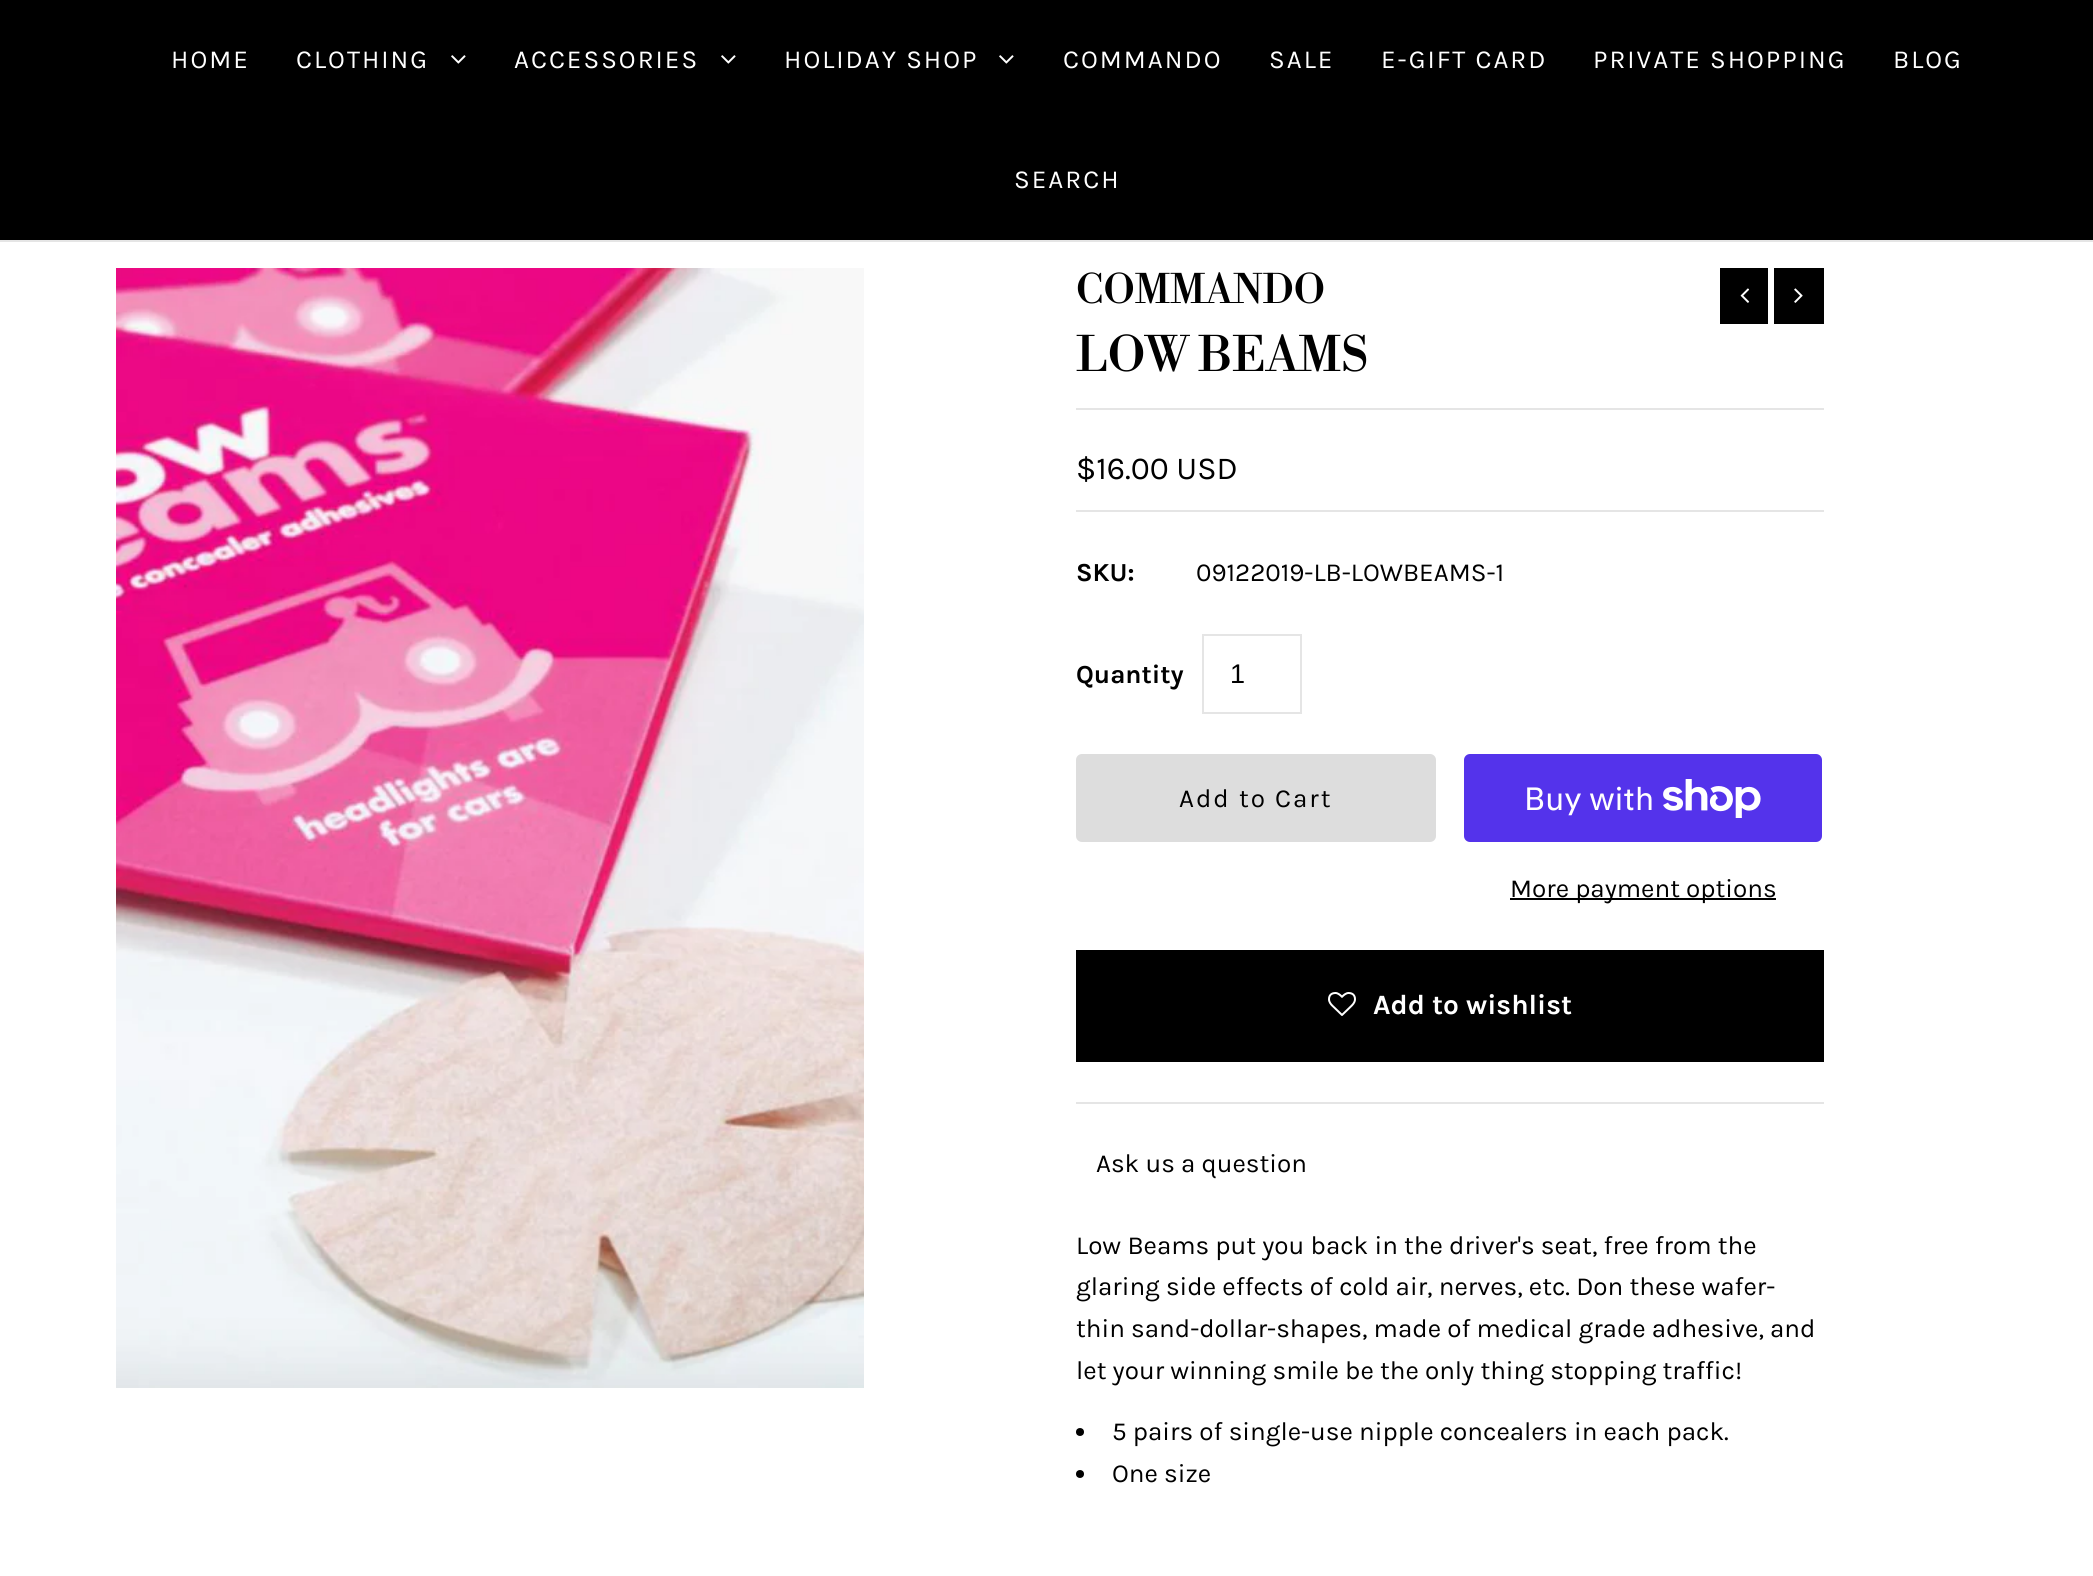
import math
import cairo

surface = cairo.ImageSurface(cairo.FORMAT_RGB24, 2093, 1576)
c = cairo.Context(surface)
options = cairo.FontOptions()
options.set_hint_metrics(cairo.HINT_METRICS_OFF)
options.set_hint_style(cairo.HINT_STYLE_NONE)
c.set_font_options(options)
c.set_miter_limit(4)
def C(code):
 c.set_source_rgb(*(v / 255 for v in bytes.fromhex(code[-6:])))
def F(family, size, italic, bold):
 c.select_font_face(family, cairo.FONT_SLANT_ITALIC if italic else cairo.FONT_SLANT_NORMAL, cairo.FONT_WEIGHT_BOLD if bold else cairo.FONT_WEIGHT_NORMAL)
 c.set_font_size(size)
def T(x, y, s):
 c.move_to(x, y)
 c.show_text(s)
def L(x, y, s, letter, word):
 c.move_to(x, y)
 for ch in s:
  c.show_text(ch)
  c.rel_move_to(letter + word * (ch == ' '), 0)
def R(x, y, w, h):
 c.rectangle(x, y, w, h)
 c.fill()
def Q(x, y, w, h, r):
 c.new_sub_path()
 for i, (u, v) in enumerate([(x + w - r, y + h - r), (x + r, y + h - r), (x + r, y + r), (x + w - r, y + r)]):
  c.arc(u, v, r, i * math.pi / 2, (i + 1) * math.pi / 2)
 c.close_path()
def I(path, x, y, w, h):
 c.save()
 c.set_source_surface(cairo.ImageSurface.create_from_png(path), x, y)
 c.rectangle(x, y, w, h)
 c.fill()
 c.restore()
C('ffffff')
c.paint()
C('000000')
R(0,0,2093,240)
C('e5e5e5')
R(0,240,2093,2)
F('Karla',26,0,0)
C('ffffff')
L(171,68,'HOME',2,0)
L(296,68,'CLOTHING',2,0)
I('1.png',451,55,15,9)
L(514,68,'ACCESSORIES',2,0)
I('1.png',721,55,15,9)
L(784,68,'HOLIDAY SHOP',2,0)
I('1.png',999,55,15,9)
L(1063,68,'COMMANDO',2,0)
L(1269,68,'SALE',2,0)
L(1381,68,'E-GIFT CARD',2,0)
L(1593,68,'PRIVATE SHOPPING',2,0)
L(1893,68,'BLOG',2,0)
L(1014,188,'SEARCH',2,0)
I('2.png',116,268,748,1120)
F('Libre Bodoni',40,0,0)
C('000000')
T(1076,303,'COMMANDO')
R(1720,268,48,56)
I('3.png',1740,288,10,15)
R(1774,268,50,56)
I('4.png',1794,288,9,15)
F('Libre Bodoni',48,0,0)
T(1076,371,'LOW BEAMS')
C('e5e5e5')
R(1076,408,748,2)
R(1076,1102,748,2)
R(1076,510,748,2)
F('Karla',32,0,0)
C('000000')
T(1076,479,'$16.00 USD')
F('Karla',26,0,1)
T(1076,581,'SKU:')
F('Karla',26,0,0)
T(1196,581,'09122019-LB-LOWBEAMS-1')
F('Karla',26,0,1)
T(1076,683,'Quantity')
c.rectangle(1203,635,98,78)
C('e5e5e5')
c.stroke()
F('Liberation Sans',27,0,0)
C('000000')
T(1230,683,'1')
C('dddddd')
Q(1076,754,360,88,6)
c.fill()
F('Karla',26,0,0)
C('000000')
L(1179,807,'Add to Cart',2,0)
C('5433eb')
Q(1464,754,358,88,6)
c.fill()
F('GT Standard',32,0,0)
C('ffffff')
T(1524,810,'Buy with')
I('5.png',1663,779,98,39)
C('000000')
R(1510,898,266,2)
F('Karla',26,0,0)
T(1510,897,'More payment options')
R(1076,950,748,112)
I('6.png',1328,992,28,24)
F('Karla',28,0,1)
C('ffffff')
T(1373,1014,'Add to wishlist')
F('Karla',26,0,0)
C('000000')
T(1096,1172,'Ask us a question')
T(1076,1254,'Low Beams put you back in the driver\'s seat, free from the')
T(1076,1295,'glaring side effects of cold air, nerves, etc. Don these wafer-')
T(1076,1337,'thin sand-dollar-shapes, made of medical grade adhesive, and')
T(1076,1379,'let your winning smile be the only thing stopping traffic!')
c.new_path()
c.arc(1080,1432,4,0,2 * math.pi)
c.fill()
T(1112,1440,'5 pairs of single-use nipple concealers in each pack.')
c.new_path()
c.arc(1080,1474,4,0,2 * math.pi)
c.fill()
T(1112,1482,'One size')
surface.write_to_png('o.png')
